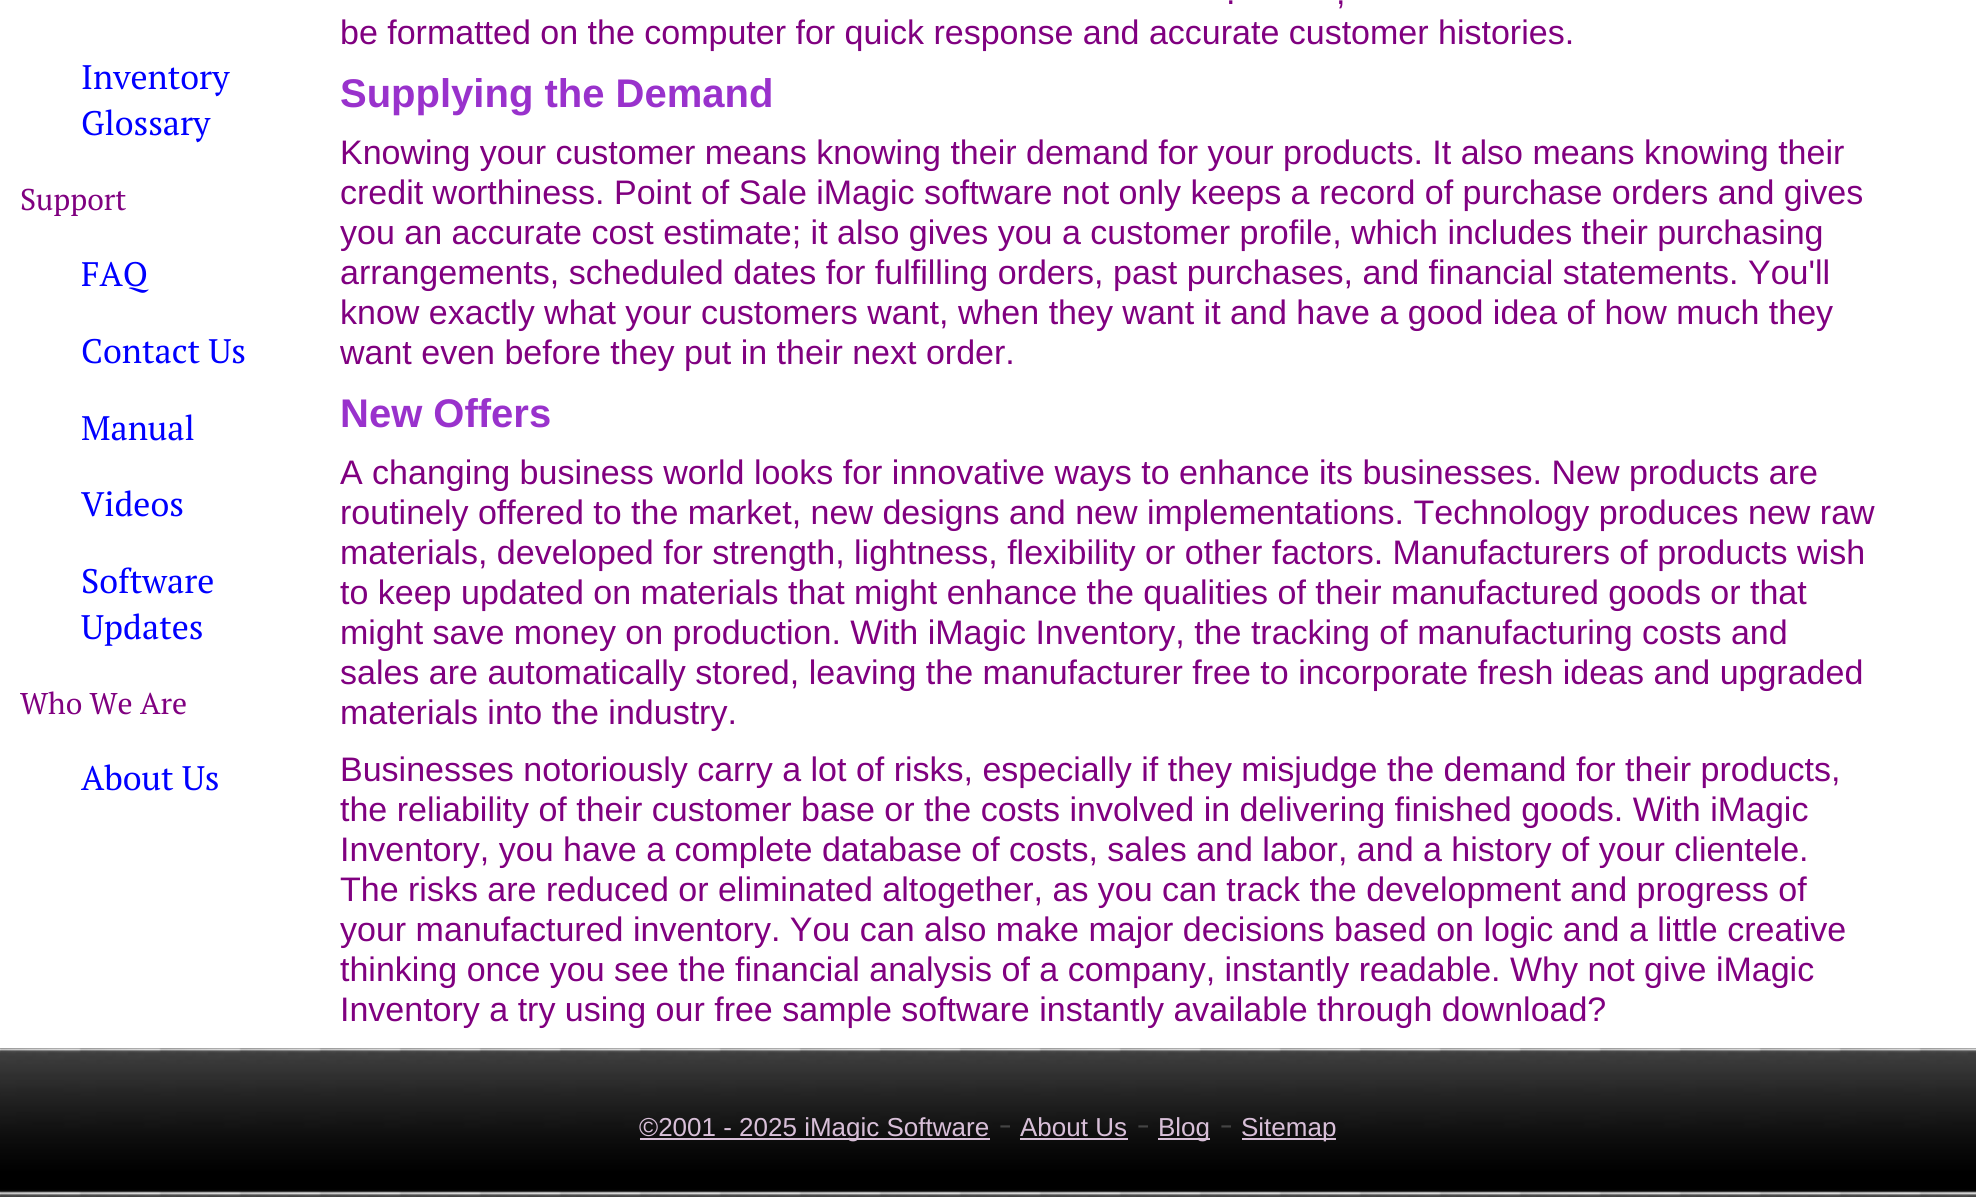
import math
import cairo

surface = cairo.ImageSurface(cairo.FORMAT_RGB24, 1976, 1197)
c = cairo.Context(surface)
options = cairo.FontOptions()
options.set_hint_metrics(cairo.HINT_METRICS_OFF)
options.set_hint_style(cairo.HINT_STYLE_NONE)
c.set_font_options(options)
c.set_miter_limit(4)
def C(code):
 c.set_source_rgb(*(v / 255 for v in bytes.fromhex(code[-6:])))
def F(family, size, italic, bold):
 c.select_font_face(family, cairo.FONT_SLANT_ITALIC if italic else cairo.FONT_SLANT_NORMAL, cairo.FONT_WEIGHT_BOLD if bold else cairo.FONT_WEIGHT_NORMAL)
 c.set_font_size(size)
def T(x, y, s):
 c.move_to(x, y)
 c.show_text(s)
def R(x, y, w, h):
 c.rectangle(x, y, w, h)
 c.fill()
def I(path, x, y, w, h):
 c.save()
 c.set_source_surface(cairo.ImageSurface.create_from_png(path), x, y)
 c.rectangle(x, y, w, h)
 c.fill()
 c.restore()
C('ffffff')
c.paint()
F('PT Serif',34,0,0)
C('0000ff')
T(81,89,'Inventory')
T(81,135,'Glossary')
F('PT Serif',30,0,0)
C('800080')
T(20,210,'Support')
F('PT Serif',34,0,0)
C('0000ff')
T(81,286,'FAQ')
T(81,363,'Contact Us')
T(81,440,'Manual')
T(81,516,'Videos')
T(81,593,'Software')
T(81,639,'Updates')
F('PT Serif',30,0,0)
C('800080')
T(20,714,'Who We Are')
F('PT Serif',34,0,0)
C('0000ff')
T(81,790,'About Us')
F('Liberation Sans',34,0,0)
C('800080')
T(1226,4,'.')
T(1336,4,',')
T(340,44,'be formatted on the computer for quick response and accurate customer histories.')
F('Liberation Sans',40,0,1)
C('9932cc')
T(340,107,'Supplying the Demand')
F('Liberation Sans',34,0,0)
C('800080')
T(340,164,'Knowing your customer means knowing their demand for your products. It also means knowing their')
T(340,204,'credit worthiness. Point of Sale iMagic software not only keeps a record of purchase orders and gives')
T(340,244,'you an accurate cost estimate; it also gives you a customer profile, which includes their purchasing')
T(340,284,'arrangements, scheduled dates for fulfilling orders, past purchases, and financial statements. You\'ll')
T(340,324,'know exactly what your customers want, when they want it and have a good idea of how much they')
T(340,364,'want even before they put in their next order.')
F('Liberation Sans',40,0,1)
C('9932cc')
T(340,427,'New Offers')
F('Liberation Sans',34,0,0)
C('800080')
T(340,484,'A changing business world looks for innovative ways to enhance its businesses. New products are')
T(340,524,'routinely offered to the market, new designs and new implementations. Technology produces new raw')
T(340,564,'materials, developed for strength, lightness, flexibility or other factors. Manufacturers of products wish')
T(340,604,'to keep updated on materials that might enhance the qualities of their manufactured goods or that')
T(340,644,'might save money on production. With iMagic Inventory, the tracking of manufacturing costs and')
T(340,684,'sales are automatically stored, leaving the manufacturer free to incorporate fresh ideas and upgraded')
T(340,724,'materials into the industry.')
T(340,781,'Businesses notoriously carry a lot of risks, especially if they misjudge the demand for their products,')
T(340,821,'the reliability of their customer base or the costs involved in delivering finished goods. With iMagic')
T(340,861,'Inventory, you have a complete database of costs, sales and labor, and a history of your clientele.')
T(340,901,'The risks are reduced or eliminated altogether, as you can track the development and progress of')
T(340,941,'your manufactured inventory. You can also make major decisions based on logic and a little creative')
T(340,981,'thinking once you see the financial analysis of a company, instantly readable. Why not give iMagic')
T(340,1021,'Inventory a try using our free sample software instantly available through download?')
I('1.png',0,1048,1976,149)
C('d8bfd8')
R(640,1138,350,2)
F('Liberation Sans',26,0,0)
T(639,1136,'©2001 - 2025 iMagic Software')
F('PT Serif',34,0,0)
C('444444')
T(998,1136,'-')
F('Liberation Sans',26,0,0)
C('d8bfd8')
T(1020,1136,'About Us')
R(1020,1138,108,2)
F('PT Serif',34,0,0)
C('444444')
T(1136,1136,'-')
C('d8bfd8')
R(1158,1138,52,2)
F('Liberation Sans',26,0,0)
T(1158,1136,'Blog')
F('PT Serif',34,0,0)
C('444444')
T(1219,1136,'-')
C('d8bfd8')
R(1242,1138,94,2)
F('Liberation Sans',26,0,0)
T(1241,1136,'Sitemap')
surface.write_to_png('o.png')
